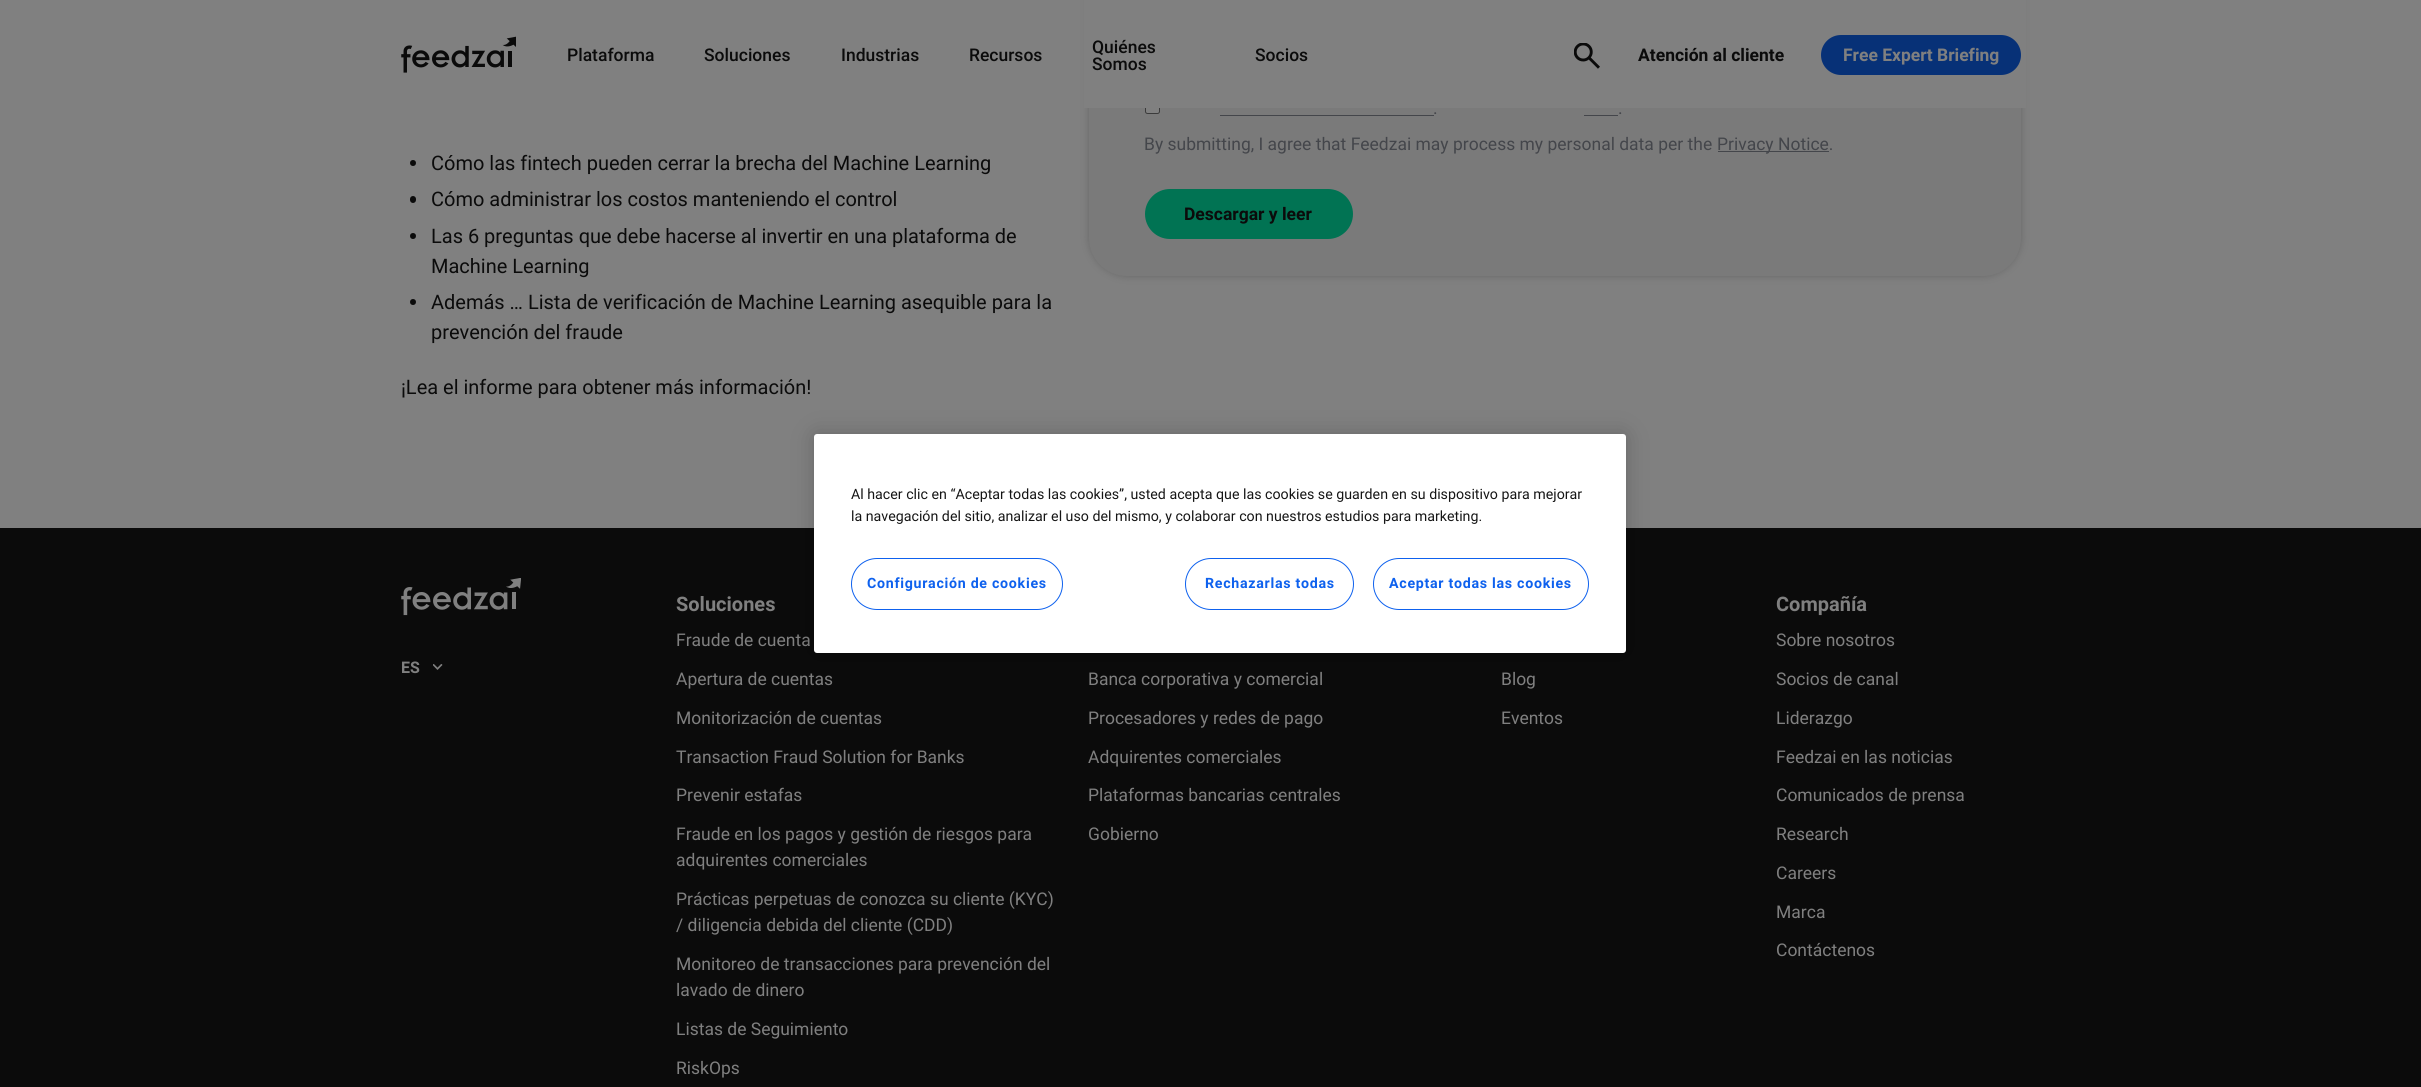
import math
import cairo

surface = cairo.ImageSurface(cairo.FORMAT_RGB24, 2421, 1087)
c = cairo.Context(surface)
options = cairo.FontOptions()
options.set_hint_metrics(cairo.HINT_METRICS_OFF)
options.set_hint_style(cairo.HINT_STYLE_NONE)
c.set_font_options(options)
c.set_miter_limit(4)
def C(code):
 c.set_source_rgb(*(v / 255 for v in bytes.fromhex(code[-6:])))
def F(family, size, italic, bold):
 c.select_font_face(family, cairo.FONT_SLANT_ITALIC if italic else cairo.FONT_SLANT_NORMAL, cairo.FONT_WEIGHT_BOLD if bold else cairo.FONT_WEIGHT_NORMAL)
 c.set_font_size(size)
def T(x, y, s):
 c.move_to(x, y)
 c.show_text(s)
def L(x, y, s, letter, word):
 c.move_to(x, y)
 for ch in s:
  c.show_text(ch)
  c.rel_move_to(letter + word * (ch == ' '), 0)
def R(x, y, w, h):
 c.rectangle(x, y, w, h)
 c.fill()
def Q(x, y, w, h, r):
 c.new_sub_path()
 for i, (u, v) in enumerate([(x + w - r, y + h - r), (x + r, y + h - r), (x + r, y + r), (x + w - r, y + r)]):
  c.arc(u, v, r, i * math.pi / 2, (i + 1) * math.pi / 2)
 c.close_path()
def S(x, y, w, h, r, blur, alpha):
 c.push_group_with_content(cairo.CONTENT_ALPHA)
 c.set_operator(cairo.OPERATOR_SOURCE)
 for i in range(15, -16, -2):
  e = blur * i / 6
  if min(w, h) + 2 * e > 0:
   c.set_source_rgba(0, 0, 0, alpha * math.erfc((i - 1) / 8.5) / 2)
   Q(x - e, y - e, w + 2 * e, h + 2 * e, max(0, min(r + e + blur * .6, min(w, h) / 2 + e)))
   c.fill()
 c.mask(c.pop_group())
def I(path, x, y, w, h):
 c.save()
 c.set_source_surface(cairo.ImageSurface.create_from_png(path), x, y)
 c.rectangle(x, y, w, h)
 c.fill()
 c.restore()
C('808080')
c.paint()
C('000000')
S(1089,-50,932,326,38,4,.2)
C('7a7a7a')
Q(1089,-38,932,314,38)
c.fill()
C('808080')
Q(1145.5,99.5,14,14,2)
c.fill_preserve()
C('3b3b3b')
c.set_line_width(1)
c.stroke()
C('808080')
R(1084,0,942,108)
I('1.png',401,36,115,37)
F('Roboto Medium',17.5,0,0)
C('0b0b0b')
T(567,61,'Plataforma')
T(704,61,'Soluciones')
T(841,61,'Industrias')
T(969,61,'Recursos')
T(1092,53,'Quiénes')
T(1092,70,'Somos')
T(1255,61,'Socios')
I('2.png',1574,43,26,26)
F('Roboto',17.5,0,1)
T(1638,61,'Atención al cliente')
C('073177')
Q(1822.5,36.5,197,37,18.5)
c.fill_preserve()
c.set_line_width(3)
c.stroke()
C('808080')
T(1843,61,'Free Expert Briefing')
C('0b0b0b')
c.new_path()
c.arc(413,163,3,0,2 * math.pi)
c.fill()
F('Roboto',20,0,0)
T(431,170,'Cómo las fintech pueden cerrar la brecha del Machine Learning')
Q(410,196,6,7,3)
c.fill()
T(431,206,'Cómo administrar los costos manteniendo el control')
c.new_path()
c.arc(413,236,3,0,2 * math.pi)
c.fill()
T(431,243,'Las 6 preguntas que debe hacerse al invertir en una plataforma de')
T(431,273,'Machine Learning')
c.new_path()
c.arc(413,302,3,0,2 * math.pi)
c.fill()
T(431,309,'Además … Lista de verificación de Machine Learning asequible para la')
T(431,339,'prevención del fraude')
T(401,394,'¡Lea el informe para obtener más información!')
F('Roboto',17.5,0,0)
C('44464b')
T(1433,114,'.')
R(1220,115,214,1)
T(1618,114,'.')
R(1584,115,34,1)
T(1144,150,'By submitting, I agree that Feedzai may process my personal data per the')
R(1718,151,111,1)
T(1717,150,'Privacy Notice.')
C('017353')
Q(1146.5,190.5,205,47,23.5)
c.fill_preserve()
c.stroke()
F('Roboto',17.5,0,1)
C('0b0b0b')
T(1184,220,'Descargar y leer')
R(0,528,2421,559)
I('3.png',401,578,120,38)
F('Roboto',16,0,1)
C('808080')
T(401,673,'ES')
I('4.png',433,664,10,6)
F('Roboto',20,0,1)
T(676,611,'Soluciones')
F('Roboto',17.5,0,0)
T(676,646,'Fraude de cuenta')
T(676,685,'Apertura de cuentas')
T(676,724,'Monitorización de cuentas')
T(676,763,'Transaction Fraud Solution for Banks')
T(676,801,'Prevenir estafas')
T(676,840,'Fraude en los pagos y gestión de riesgos para')
T(676,866,'adquirentes comerciales')
T(676,905,'Prácticas perpetuas de conozca su cliente (KYC)')
T(676,931,'/ diligencia debida del cliente (CDD)')
T(676,970,'Monitoreo de transacciones para prevención del')
T(676,996,'lavado de dinero')
T(676,1035,'Listas de Seguimiento')
T(676,1074,'RiskOps')
F('Roboto',20,0,1)
T(1776,611,'Compañía')
F('Roboto',17.5,0,0)
T(1776,646,'Sobre nosotros')
T(1776,685,'Socios de canal')
T(1776,724,'Liderazgo')
T(1776,763,'Feedzai en las noticias')
T(1776,801,'Comunicados de prensa')
T(1776,840,'Research')
T(1776,879,'Careers')
T(1776,918,'Marca')
T(1776,956,'Contáctenos')
T(1088,685,'Banca corporativa y comercial')
T(1088,724,'Procesadores y redes de pago')
T(1088,763,'Adquirentes comerciales')
T(1088,801,'Plataformas bancarias centrales')
T(1088,840,'Gobierno')
T(1501,685,'Blog')
T(1501,724,'Eventos')
C('000000')
S(814,434,812,219,3,11,.2)
C('ffffff')
Q(814,434,812,219,3)
c.fill()
F('Roboto',14.23,0,0)
C('151515')
T(851,499,'Al hacer clic en “Aceptar todas las cookies”, usted acepta que las cookies se guarden en su dispositivo para mejorar')
T(851,521,'la navegación del sitio, analizar el uso del mismo, y colaborar con nuestros estudios para marketing.')
Q(851.5,558.5,211,51,25.5)
C('0e61ee')
c.set_line_width(1)
c.stroke()
F('Roboto',14.23,0,1)
L(867,588,'Configuración de cookies',.7,0)
Q(1185.5,558.5,168,51,25.5)
c.stroke()
L(1205,588,'Rechazarlas todas',.7,0)
Q(1373.5,558.5,215,51,25.5)
c.stroke()
L(1389,588,'Aceptar todas las cookies',.7,0)
surface.write_to_png('o.png')
